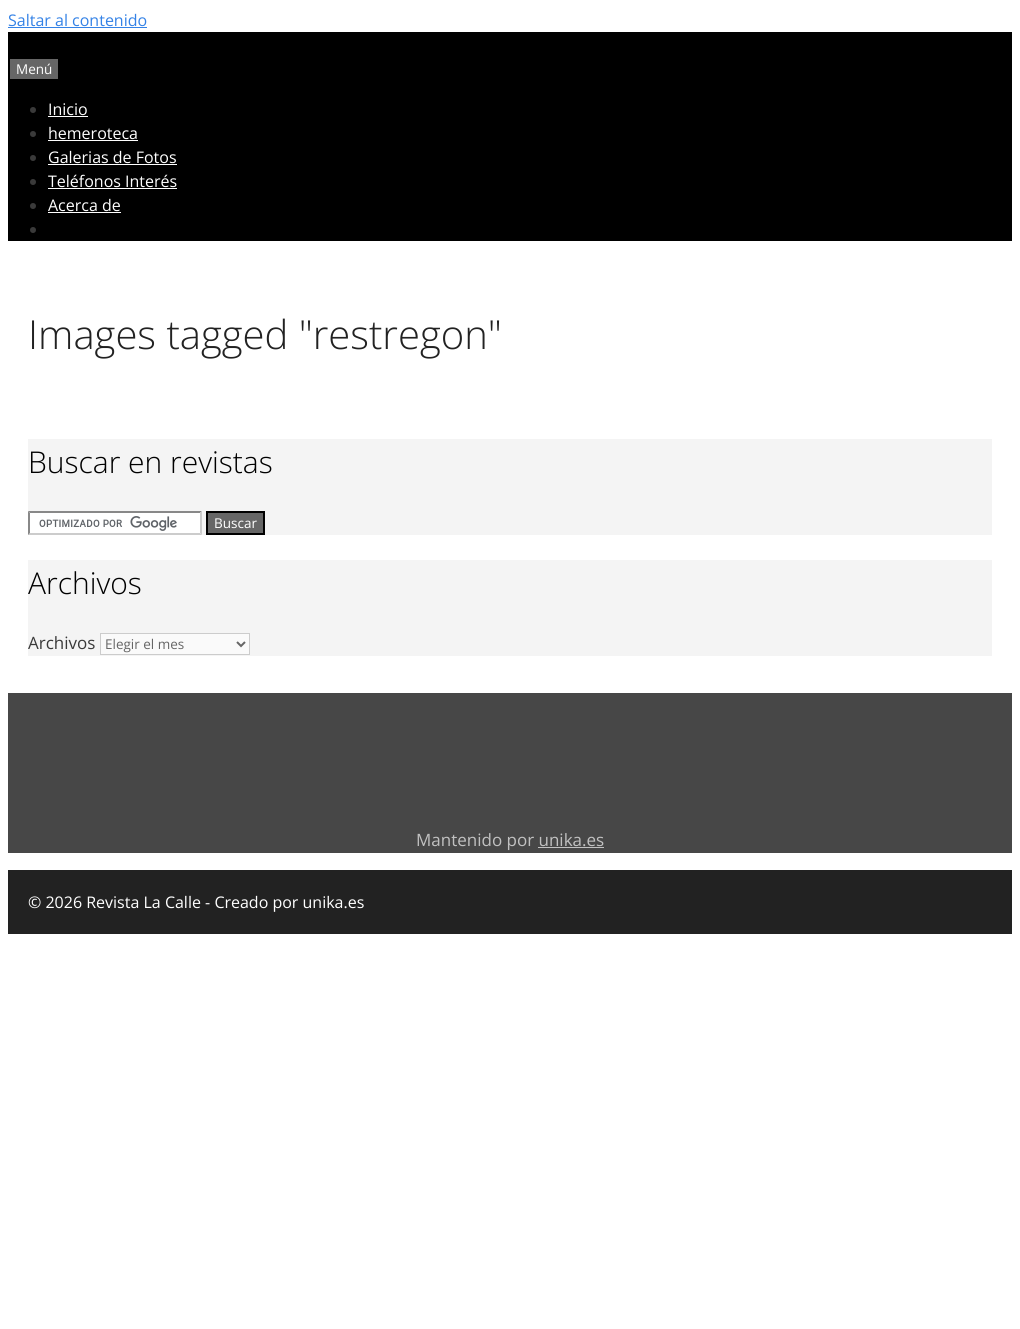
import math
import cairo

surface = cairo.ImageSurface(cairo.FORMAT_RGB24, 1020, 1329)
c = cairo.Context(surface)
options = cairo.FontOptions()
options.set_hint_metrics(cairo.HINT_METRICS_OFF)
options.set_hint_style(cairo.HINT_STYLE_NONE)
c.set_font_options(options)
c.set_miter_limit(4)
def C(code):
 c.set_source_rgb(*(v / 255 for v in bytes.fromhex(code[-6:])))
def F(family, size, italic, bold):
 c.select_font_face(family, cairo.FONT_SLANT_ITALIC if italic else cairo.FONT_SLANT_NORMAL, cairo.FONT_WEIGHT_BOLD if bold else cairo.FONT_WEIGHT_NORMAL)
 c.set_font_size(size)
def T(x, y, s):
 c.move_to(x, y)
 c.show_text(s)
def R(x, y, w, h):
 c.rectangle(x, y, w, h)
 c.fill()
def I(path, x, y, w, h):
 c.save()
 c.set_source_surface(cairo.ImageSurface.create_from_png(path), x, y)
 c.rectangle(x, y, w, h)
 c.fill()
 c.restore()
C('ffffff')
c.paint()
F('Open Sans',16,0,0)
C('3482e6')
T(8,26,'Saltar al contenido')
R(8,27,139,1)
C('000000')
R(8,32,1004,209)
C('666666')
R(10,59,48,20)
F('Open Sans',13.5,0,0)
C('ffffff')
T(16,74,'Menú')
C('3a3a3a')
c.new_path()
c.arc(33,110,3,0,2 * math.pi)
c.fill()
F('Open Sans',16,0,0)
C('ffffff')
T(48,115,'Inicio')
R(48,116,40,1)
C('3a3a3a')
c.new_path()
c.arc(33,134,3,0,2 * math.pi)
c.fill()
C('ffffff')
T(48,139,'hemeroteca')
R(48,140,90,1)
C('3a3a3a')
c.new_path()
c.arc(33,158,3,0,2 * math.pi)
c.fill()
C('ffffff')
T(48,163,'Galerias de Fotos')
R(48,164,129,1)
C('3a3a3a')
c.new_path()
c.arc(33,182,3,0,2 * math.pi)
c.fill()
C('ffffff')
T(48,187,'Teléfonos Interés')
R(48,188,129,1)
C('3a3a3a')
c.new_path()
c.arc(33,206,3,0,2 * math.pi)
c.fill()
C('ffffff')
T(48,211,'Acerca de')
R(48,212,73,1)
C('3a3a3a')
c.new_path()
c.arc(33,230,3,0,2 * math.pi)
c.fill()
F('Open Sans Light',40,0,0)
C('222222')
T(28,349,'Images tagged "restregon"')
C('f4f4f4')
R(28,439,964,96)
F('Open Sans Light',30,0,0)
C('000000')
T(28,473,'Buscar en revistas')
C('ffffff')
R(28,511,174,24)
I('1.png',39,516,138,15)
C('888888')
c.new_path()
c.move_to(28,511)
c.line_to(202,511)
c.line_to(200,513)
c.line_to(30,513)
c.close_path()
c.fill()
C('cccccc')
c.new_path()
c.move_to(202,511)
c.line_to(202,535)
c.line_to(200,533)
c.line_to(200,513)
c.close_path()
c.fill()
c.new_path()
c.move_to(202,535)
c.line_to(28,535)
c.line_to(30,533)
c.line_to(200,533)
c.close_path()
c.fill()
C('888888')
c.new_path()
c.move_to(28,535)
c.line_to(28,511)
c.line_to(30,513)
c.line_to(30,533)
c.close_path()
c.fill()
C('666666')
c.rectangle(207,512,57,22)
c.fill_preserve()
C('000000')
c.stroke()
F('Open Sans',13.5,0,0)
C('ffffff')
T(214,528,'Buscar')
C('f4f4f4')
R(28,560,964,96)
F('Open Sans Light',30,0,0)
C('000000')
T(28,594,'Archivos')
F('Open Sans',17,0,0)
C('3a3a3a')
T(28,649,'Archivos')
C('fafafa')
c.rectangle(100.5,633.5,149,21)
c.fill_preserve()
C('cccccc')
c.set_line_width(1)
c.stroke()
c.new_path()
c.move_to(237,642)
c.line_to(241,646)
c.line_to(245,642)
C('666666')
c.set_line_width(2)
c.stroke()
F('Open Sans',13.5,0,0)
T(105,649,'Elegir el mes')
C('474747')
R(8,693,1004,160)
F('Open Sans',17,0,0)
C('c1c1c1')
T(416,846,'Mantenido por unika.es')
R(538,847,66,1)
C('222222')
R(8,870,1004,64)
F('Open Sans',16,0,0)
C('ffffff')
T(28,908,'© 2026 Revista La Calle - Creado por unika.es')
surface.write_to_png('o.png')
